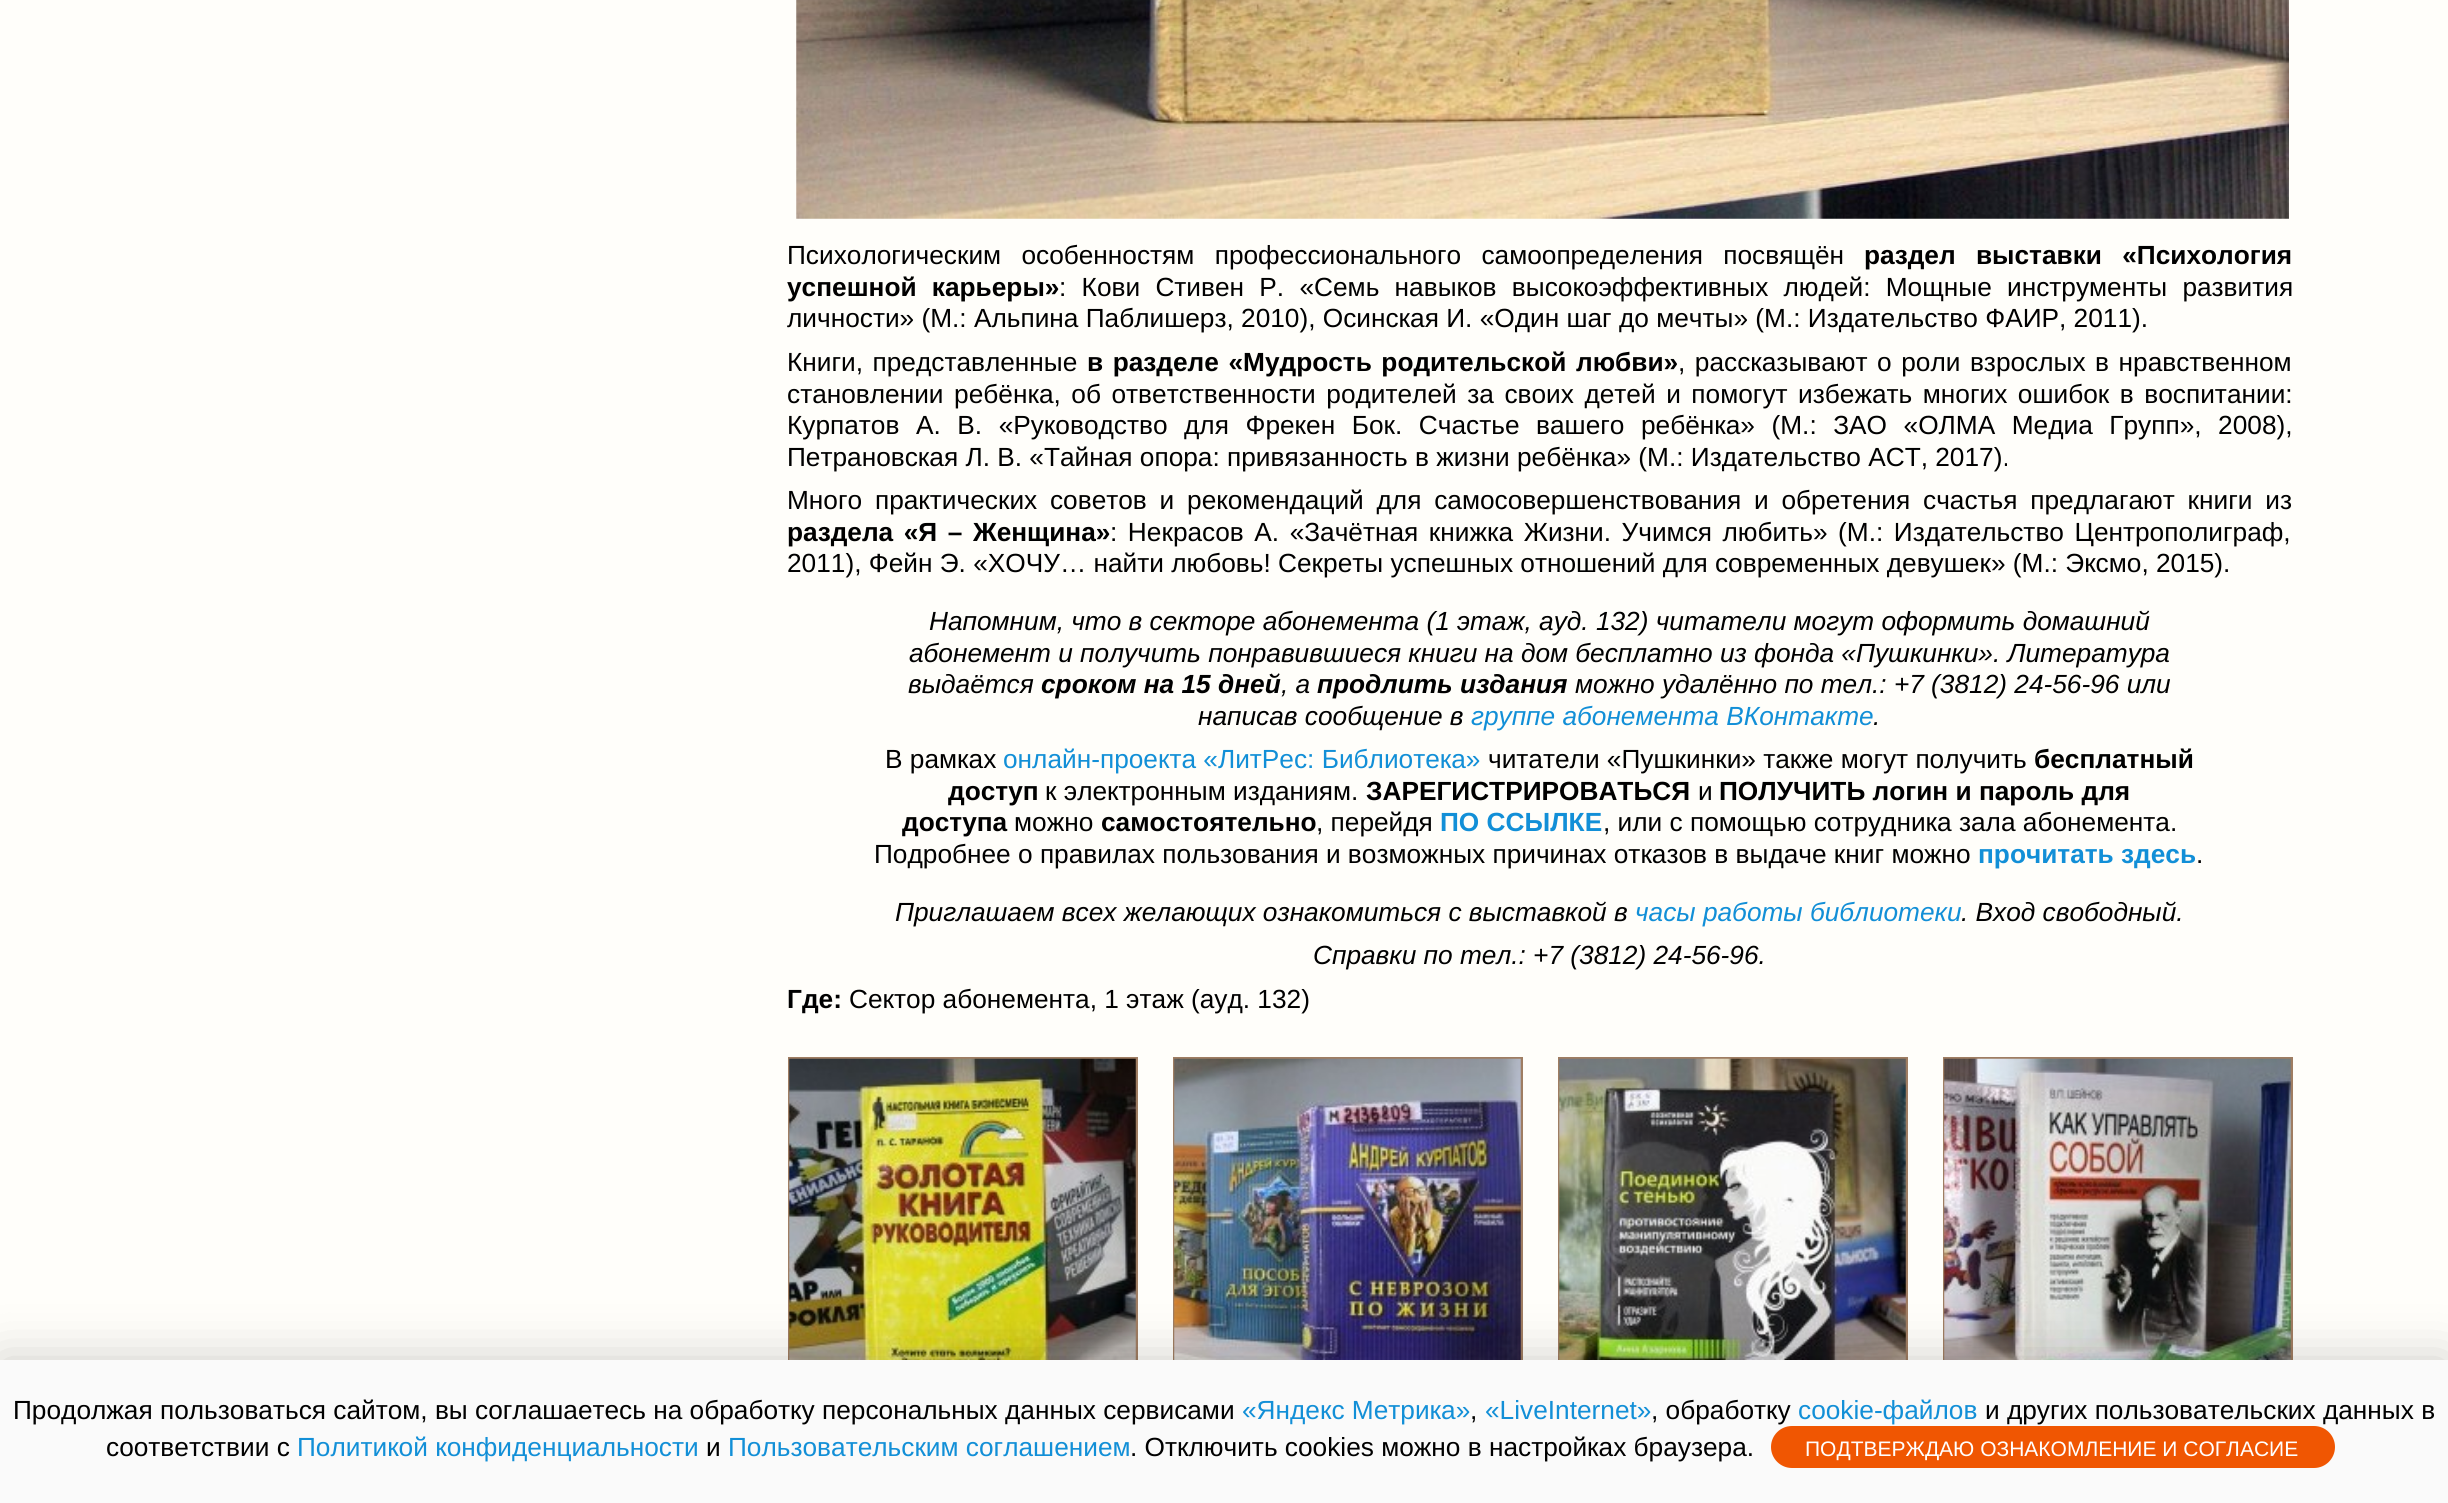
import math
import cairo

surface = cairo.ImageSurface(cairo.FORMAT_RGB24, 2448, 1503)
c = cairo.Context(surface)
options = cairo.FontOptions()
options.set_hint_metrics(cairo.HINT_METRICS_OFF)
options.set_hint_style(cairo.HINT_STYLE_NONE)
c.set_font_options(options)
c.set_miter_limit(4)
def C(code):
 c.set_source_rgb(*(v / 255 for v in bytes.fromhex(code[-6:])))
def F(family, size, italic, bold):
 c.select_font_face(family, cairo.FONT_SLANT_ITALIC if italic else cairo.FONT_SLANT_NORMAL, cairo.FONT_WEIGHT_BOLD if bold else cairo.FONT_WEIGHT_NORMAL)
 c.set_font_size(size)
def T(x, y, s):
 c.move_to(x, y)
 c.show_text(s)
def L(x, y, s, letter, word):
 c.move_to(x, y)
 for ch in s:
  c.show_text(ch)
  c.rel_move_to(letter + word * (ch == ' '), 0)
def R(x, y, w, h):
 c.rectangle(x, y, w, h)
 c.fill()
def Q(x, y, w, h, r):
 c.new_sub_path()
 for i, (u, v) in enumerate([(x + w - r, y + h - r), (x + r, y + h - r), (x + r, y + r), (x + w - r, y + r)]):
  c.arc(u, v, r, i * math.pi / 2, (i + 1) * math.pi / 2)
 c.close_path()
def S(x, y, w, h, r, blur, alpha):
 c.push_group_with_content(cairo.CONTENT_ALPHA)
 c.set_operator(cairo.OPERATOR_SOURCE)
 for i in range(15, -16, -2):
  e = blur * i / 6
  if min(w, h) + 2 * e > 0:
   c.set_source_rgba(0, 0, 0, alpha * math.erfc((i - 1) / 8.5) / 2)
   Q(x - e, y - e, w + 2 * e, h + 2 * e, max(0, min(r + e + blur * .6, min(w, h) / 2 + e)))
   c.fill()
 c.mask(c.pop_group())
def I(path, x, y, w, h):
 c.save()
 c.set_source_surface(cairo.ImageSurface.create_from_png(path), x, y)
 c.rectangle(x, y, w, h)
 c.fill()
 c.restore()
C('fffefa')
c.paint()
I('1.png',796,0,1493,219)
F('Liberation Sans',26.25,0,0)
C('000000')
L(787,264,'Психологическим особенностям профессионального самоопределения посвящён',0,13)
F('Liberation Sans',26.25,0,1)
L(1864,264,'раздел выставки «Психология',0,13)
L(787,296,'успешной карьеры»',0,8)
F('Liberation Sans',26.25,0,0)
L(1059,296,': Кови Стивен Р. «Семь навыков высокоэффективных людей: Мощные инструменты развития',0,8)
T(787,327,'личности» (М.: Альпина Паблишерз, 2010), Осинская И. «Один шаг до мечты» (М.: Издательство ФАИР, 2011).')
L(787,371,'Книги, представленные',0,2.25)
F('Liberation Sans',26.25,0,1)
L(1087,371,'в разделе «Мудрость родительской любви»',0,2.25)
F('Liberation Sans',26.25,0,0)
L(1678,371,', рассказывают о роли взрослых в нравственном',0,2.25)
L(787,403,'становлении ребёнка, об ответственности родителей за своих детей и помогут избежать многих ошибок в воспитании:',0,3.25)
L(787,434,'Курпатов А. В. «Руководство для Фрекен Бок. Счастье вашего ребёнка» (М.: ЗАО «ОЛМА Медиа Групп», 2008),',0,9.25)
T(787,466,'Петрановская Л. В. «Тайная опора: привязанность в жизни ребёнка» (М.: Издательство АСТ, 2017).')
L(787,509,'Много практических советов и рекомендаций для самосовершенствования и обретения счастья предлагают книги из',0,5.5)
F('Liberation Sans',26.25,0,1)
L(787,541,'раздела «Я – Женщина»',0,3.25)
F('Liberation Sans',26.25,0,0)
L(1110,541,': Некрасов А. «Зачётная книжка Жизни. Учимся любить» (М.: Издательство Центрополиграф,',0,3.25)
T(787,572,'2011), Фейн Э. «ХОЧУ… найти любовь! Секреты успешных отношений для современных девушек» (М.: Эксмо, 2015).')
F('Liberation Sans',26.25,1,0)
T(929,630,'Напомним, что в секторе абонемента (1 этаж, ауд. 132) читатели могут оформить домашний')
T(909,662,'абонемент и получить понравившиеся книги на дом бесплатно из фонда «Пушкинки». Литература')
T(908,693,'выдаётся')
F('Liberation Sans',26.25,1,1)
T(1041,693,'сроком на 15 дней')
F('Liberation Sans',26.25,1,0)
T(1281,693,', а')
F('Liberation Sans',26.25,1,1)
T(1317,693,'продлить издания')
F('Liberation Sans',26.25,1,0)
T(1575,693,'можно удалённо по тел.: +7 (3812) 24-56-96 или')
T(1198,725,'написав сообщение в')
C('128fd7')
T(1471,725,'группе абонемента ВКонтакте')
C('000000')
T(1873,725,'.')
F('Liberation Sans',26.25,0,0)
T(885,768,'В рамках')
C('128fd7')
T(1003,768,'онлайн-проекта «ЛитРес: Библиотека»')
C('000000')
T(1488,768,'читатели «Пушкинки» также могут получить')
F('Liberation Sans',26.25,0,1)
T(2034,768,'бесплатный')
T(948,800,'доступ')
F('Liberation Sans',26.25,0,0)
T(1045,800,'к электронным изданиям.')
F('Liberation Sans',26.25,0,1)
T(1366,800,'ЗАРЕГИСТРИРОВАТЬСЯ')
F('Liberation Sans',26.25,0,0)
T(1698,800,'и')
F('Liberation Sans',26.25,0,1)
T(1719,800,'ПОЛУЧИТЬ логин и пароль для')
T(902,831,'доступа')
F('Liberation Sans',26.25,0,0)
T(1014,831,'можно')
F('Liberation Sans',26.25,0,1)
T(1101,831,'самостоятельно')
F('Liberation Sans',26.25,0,0)
T(1316,831,', перейдя')
F('Liberation Sans',26.25,0,1)
C('128fd7')
T(1440,831,'ПО ССЫЛКЕ')
F('Liberation Sans',26.25,0,0)
C('000000')
T(1603,831,', или с помощью сотрудника зала абонемента.')
T(874,863,'Подробнее о правилах пользования и возможных причинах отказов в выдаче книг можно')
F('Liberation Sans',26.25,0,1)
C('128fd7')
T(1978,863,'прочитать здесь')
F('Liberation Sans',26.25,0,0)
C('000000')
T(2196,863,'.')
F('Liberation Sans',26.25,1,0)
T(895,921,'Приглашаем всех желающих ознакомиться с выставкой в')
C('128fd7')
T(1635,921,'часы работы библиотеки')
C('000000')
T(1961,921,'. Вход свободный.')
T(1313,964,'Справки по тел.: +7 (3812) 24-56-96.')
F('Liberation Sans',26.25,0,1)
T(787,1008,'Где:')
F('Liberation Sans',26.25,0,0)
T(849,1008,'Сектор абонемента, 1 этаж (ауд. 132)')
C('9f7d62')
R(788,1057,350,303)
I('2.png',789,1058,347,302)
R(1173,1057,350,303)
I('3.png',1174,1058,347,302)
R(1558,1057,350,303)
I('4.png',1559,1058,347,302)
R(1943,1057,350,303)
I('5.png',1944,1058,347,302)
C('000000')
S(0,1360,2448,143,0,26,.2)
C('fafafa')
R(0,1360,2448,143)
C('000000')
T(13,1419,'Продолжая пользоваться сайтом, вы соглашаетесь на обработку персональных данных сервисами')
C('128fd7')
T(1242,1419,'«Яндекс Метрика»')
C('000000')
T(1470,1419,',')
C('128fd7')
T(1485,1419,'«LiveInternet»')
C('000000')
T(1651,1419,', обработку')
C('128fd7')
T(1798,1419,'cookie-файлов')
C('000000')
T(1985,1419,'и других пользовательских данных в')
T(106,1456,'соответствии с')
C('128fd7')
T(297,1456,'Политикой конфиденциальности')
C('000000')
T(706,1456,'и')
C('128fd7')
T(728,1456,'Пользовательским соглашением')
C('000000')
T(1130,1456,'. Отключить cookies можно в настройках браузера.')
C('f05602')
Q(1771,1426,564,42,21)
c.fill()
F('Liberation Sans',21,0,0)
C('ffffff')
T(1805,1456,'ПОДТВЕРЖДАЮ ОЗНАКОМЛЕНИЕ И СОГЛАСИЕ')
surface.write_to_png('o.png')
